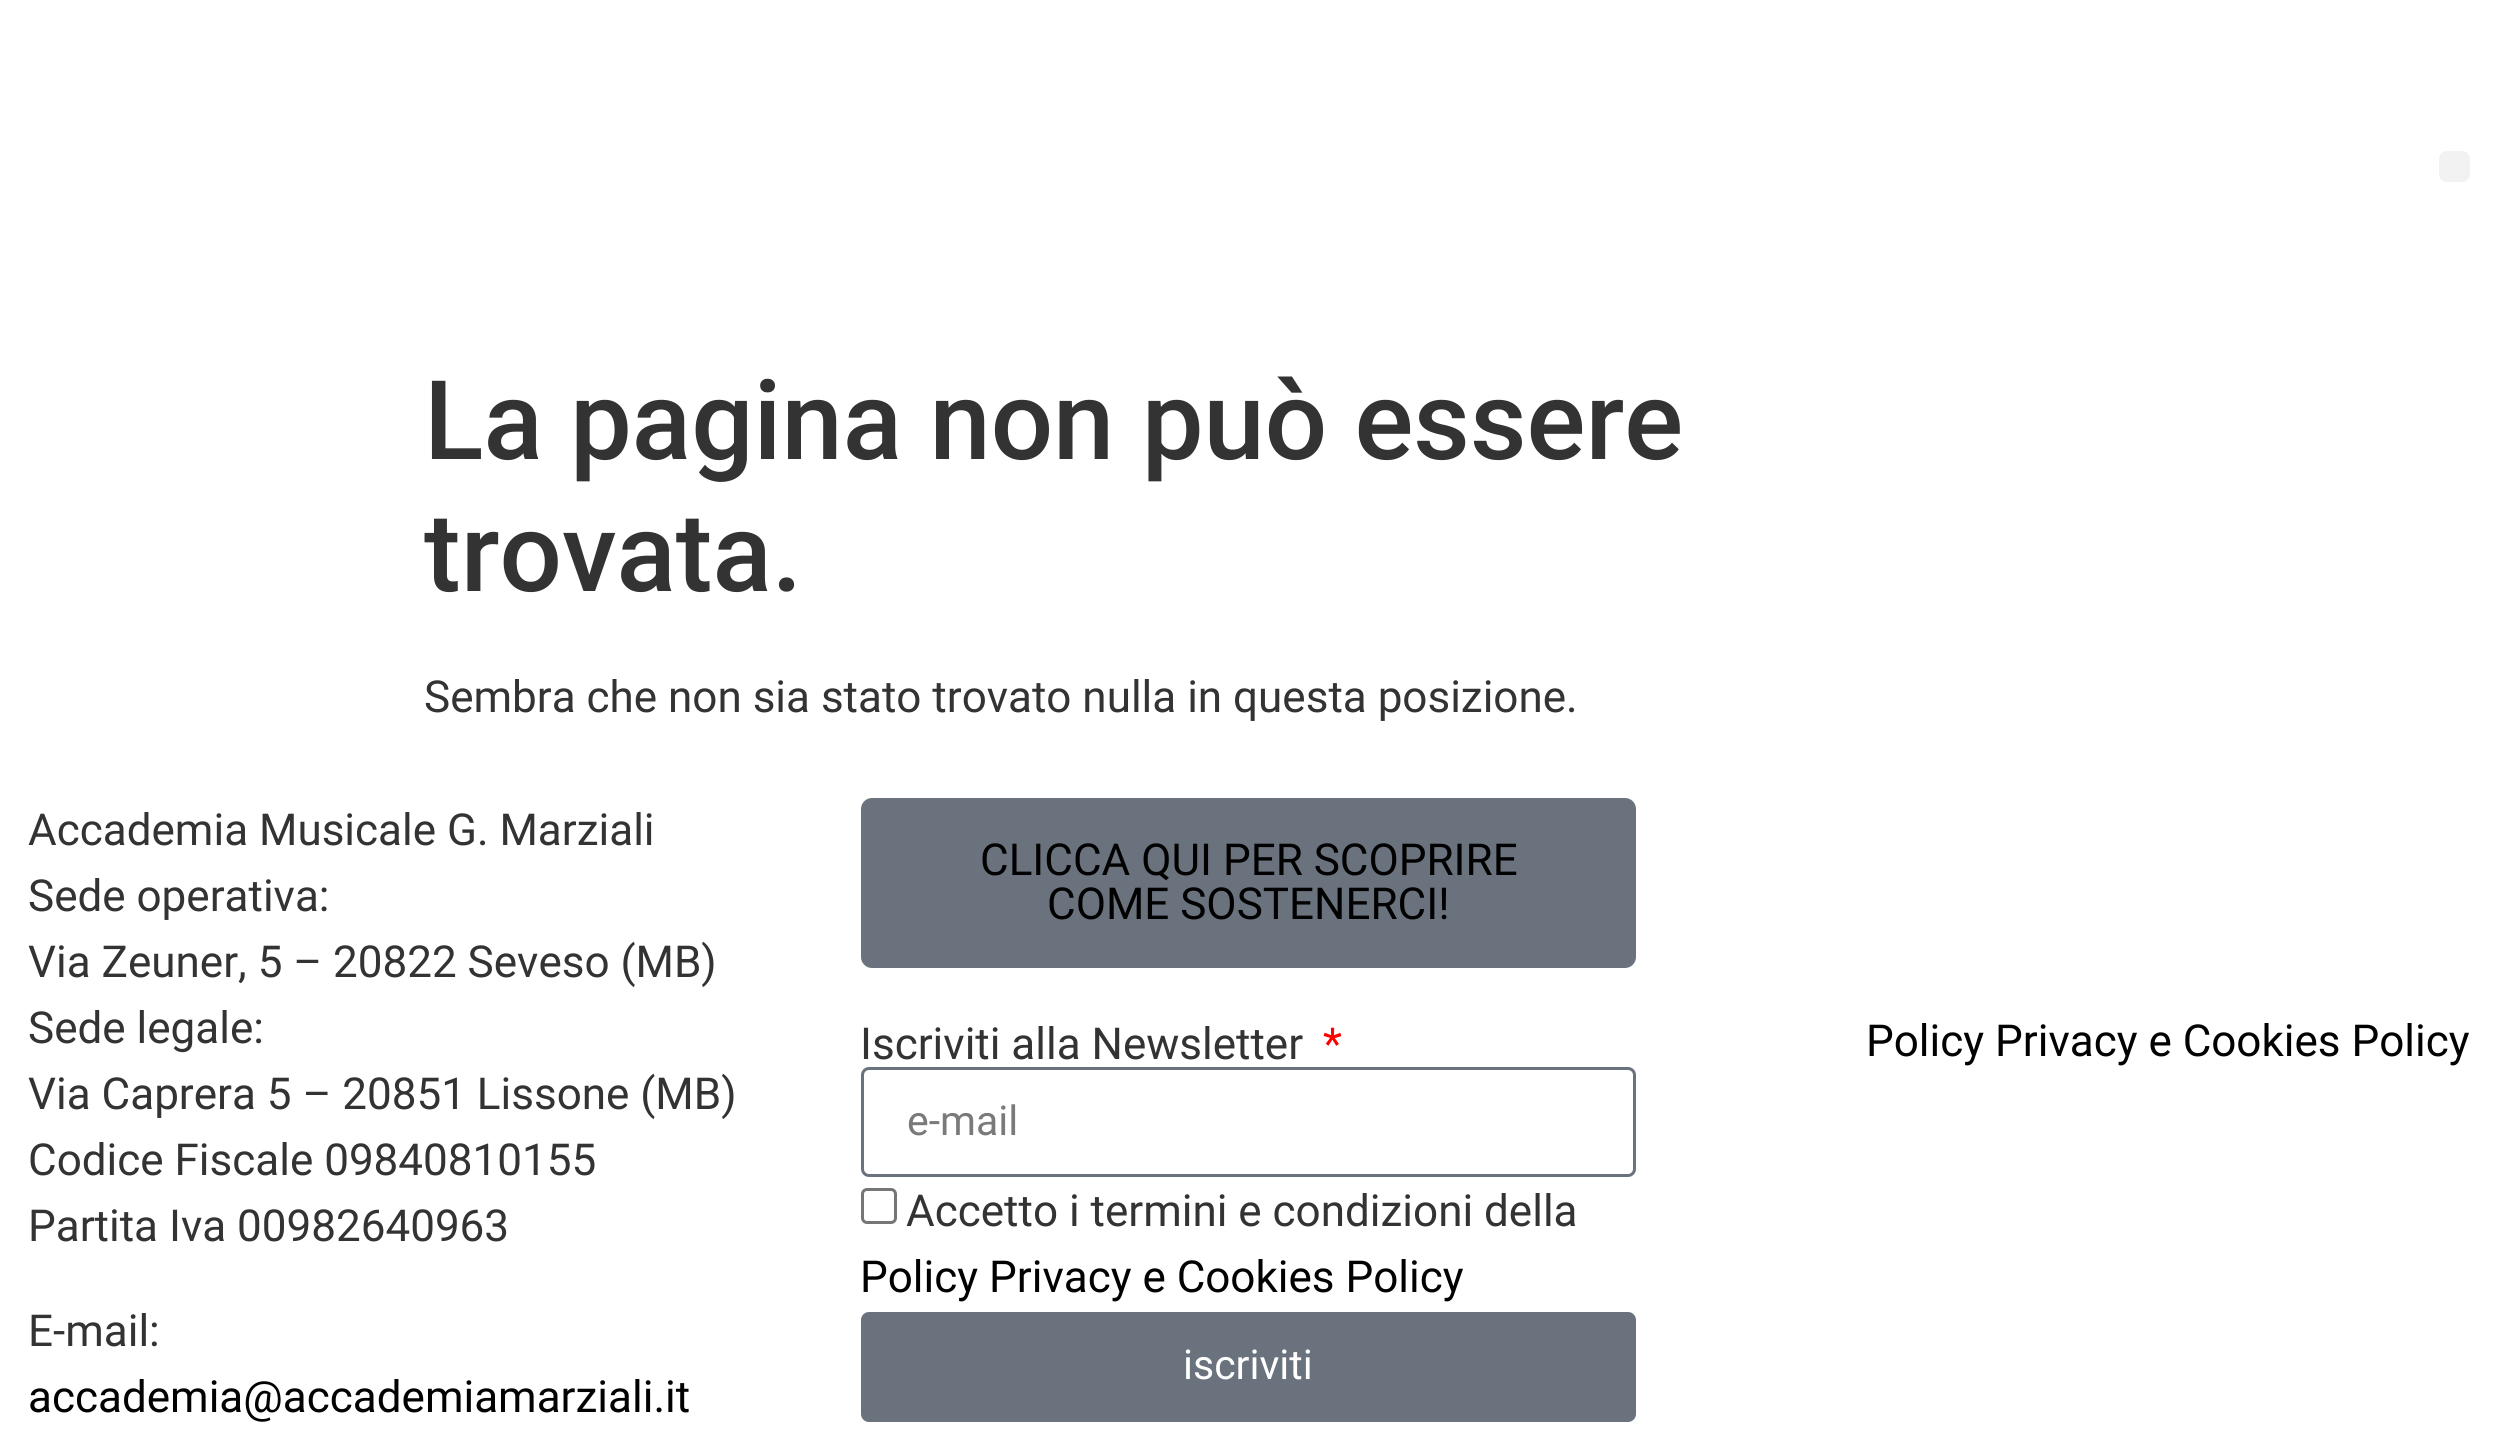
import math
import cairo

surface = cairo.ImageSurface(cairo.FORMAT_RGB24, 2497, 1443)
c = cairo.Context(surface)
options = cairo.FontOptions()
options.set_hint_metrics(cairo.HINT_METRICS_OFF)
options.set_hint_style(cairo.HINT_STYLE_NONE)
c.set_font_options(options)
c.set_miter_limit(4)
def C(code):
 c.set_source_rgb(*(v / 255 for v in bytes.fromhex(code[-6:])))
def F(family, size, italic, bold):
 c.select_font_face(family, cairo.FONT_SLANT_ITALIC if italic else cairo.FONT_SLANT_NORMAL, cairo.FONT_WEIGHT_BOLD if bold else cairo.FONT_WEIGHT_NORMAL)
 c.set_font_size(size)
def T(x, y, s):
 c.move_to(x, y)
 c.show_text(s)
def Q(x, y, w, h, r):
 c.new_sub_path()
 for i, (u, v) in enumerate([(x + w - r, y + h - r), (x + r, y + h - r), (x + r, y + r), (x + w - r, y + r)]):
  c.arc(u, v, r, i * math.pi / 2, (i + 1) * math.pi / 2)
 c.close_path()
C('ffffff')
c.paint()
C('f2f2f2')
Q(2439,151,31,31,8)
c.fill()
F('Roboto Medium',110,0,0)
C('333333')
T(424,459,'La pagina non può essere')
T(424,591,'trovata.')
F('Roboto',44,0,0)
T(424,712,'Sembra che non sia stato trovato nulla in questa posizione.')
T(28,845,'Accademia Musicale G. Marziali')
T(28,911,'Sede operativa:')
T(28,977,'Via Zeuner, 5 – 20822 Seveso (MB)')
T(28,1043,'Sede legale:')
T(28,1109,'Via Caprera 5 – 20851 Lissone (MB)')
T(28,1175,'Codice Fiscale 09840810155')
T(28,1241,'Partita Iva 00982640963')
T(28,1346,'E-mail:')
C('020101')
T(28,1412,'accademia@accademiamarziali.it')
C('69727d')
Q(861,798,775,170,11)
c.fill()
C('020101')
T(980,875,'CLICCA QUI PER SCOPRIRE')
T(1047,919,'COME SOSTENERCI!')
C('333333')
T(860,1059,'Iscriviti alla Newsletter')
C('ff0000')
T(1323,1059,'*')
Q(862.5,1068.5,772,107,6.5)
C('69727d')
c.set_line_width(3)
c.stroke()
F('Roboto',41,0,0)
C('797a7c')
T(907,1135,'e-mail')
Q(862.5,1189.5,33,33,4.5)
C('767676')
c.stroke()
F('Roboto',44,0,0)
C('333333')
T(906,1226,'Accetto i termini e condizioni della')
C('020101')
T(860,1292,'Policy Privacy e Cookies Policy')
C('69727d')
Q(861,1312,775,110,8)
c.fill()
F('Roboto',41,0,0)
C('ffffff')
T(1183,1379,'iscriviti')
F('Roboto',44,0,0)
C('020101')
T(1866,1056,'Policy Privacy e Cookies Policy')
surface.write_to_png('o.png')
